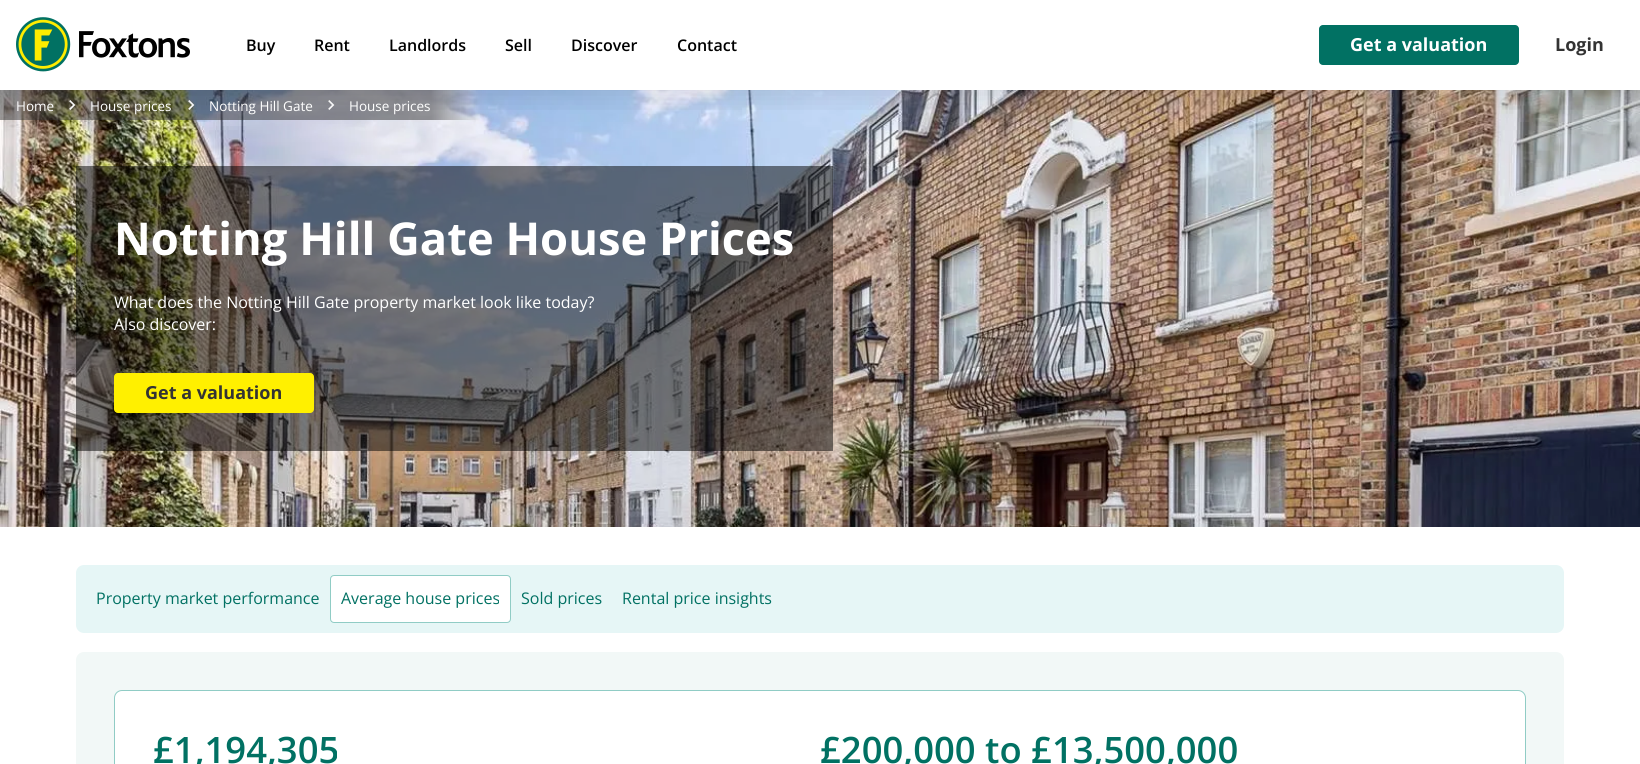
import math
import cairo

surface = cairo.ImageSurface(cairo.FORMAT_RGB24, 1640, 764)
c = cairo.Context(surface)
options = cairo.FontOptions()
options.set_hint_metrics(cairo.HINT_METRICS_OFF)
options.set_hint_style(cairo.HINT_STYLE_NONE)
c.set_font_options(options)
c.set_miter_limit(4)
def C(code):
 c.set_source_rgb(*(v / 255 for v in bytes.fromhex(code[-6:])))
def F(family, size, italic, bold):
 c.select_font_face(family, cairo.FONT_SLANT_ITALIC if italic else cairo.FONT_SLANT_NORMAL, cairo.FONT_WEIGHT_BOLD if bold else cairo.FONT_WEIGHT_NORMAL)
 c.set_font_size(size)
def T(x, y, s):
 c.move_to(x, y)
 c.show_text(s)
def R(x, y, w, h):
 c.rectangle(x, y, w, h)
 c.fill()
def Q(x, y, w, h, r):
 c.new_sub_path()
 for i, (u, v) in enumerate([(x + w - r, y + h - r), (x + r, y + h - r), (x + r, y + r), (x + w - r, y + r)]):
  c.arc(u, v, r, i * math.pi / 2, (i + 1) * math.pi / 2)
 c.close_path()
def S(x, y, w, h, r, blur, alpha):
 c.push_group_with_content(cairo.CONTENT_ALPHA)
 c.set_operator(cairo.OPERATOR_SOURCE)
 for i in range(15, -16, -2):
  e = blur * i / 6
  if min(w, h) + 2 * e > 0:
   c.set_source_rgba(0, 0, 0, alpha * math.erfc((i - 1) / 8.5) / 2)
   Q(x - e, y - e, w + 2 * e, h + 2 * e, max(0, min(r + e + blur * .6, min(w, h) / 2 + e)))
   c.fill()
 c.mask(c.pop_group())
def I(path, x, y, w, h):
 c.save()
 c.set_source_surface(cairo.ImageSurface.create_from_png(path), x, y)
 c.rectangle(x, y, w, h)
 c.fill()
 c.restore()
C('ffffff')
c.paint()
I('5.png',0,90,1640,437)
I('2.png',69,100,7,10)
I('3.png',188,100,7,10)
I('4.png',328,100,7,10)
c.save()
c.rectangle(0,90,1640,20)
c.clip()
C('000000')
S(0,8,1640,90,0,14,.1)
c.restore()
I('1.png',16,17,174,55)
F('Open Sans SemiBold',16,0,0)
C('000000')
T(246,51,'Buy')
T(314,51,'Rent')
T(389,51,'Landlords')
T(505,51,'Sell')
T(571,51,'Discover')
T(677,51,'Contact')
C('017163')
Q(1319,25,200,40,4)
c.fill()
F('Open Sans',18,0,1)
C('ffffff')
T(1350,51,'Get a valuation')
C('333333')
T(1555,51,'Login')
F('Open Sans',13.5,0,0)
C('ffffff')
T(16,111,'Home')
T(90,111,'House prices')
T(209,111,'Notting Hill Gate')
T(349,111,'House prices')
c.set_source_rgba(0,0,0,0.5)
R(76,166,757,285)
F('Open Sans',45.3,0,1)
C('ffffff')
T(114,255,'Notting Hill Gate House Prices')
F('Open Sans',16,0,0)
T(114,308,'What does the Notting Hill Gate property market look like today?')
T(114,330,'Also discover:')
C('fff000')
Q(114.5,373.5,199,39,3.5)
c.fill_preserve()
c.set_line_width(1)
c.stroke()
F('Open Sans',18,0,1)
C('333333')
T(145,399,'Get a valuation')
C('e6f6f6')
Q(76,565,1488,68,8)
c.fill()
F('Open Sans',16,0,0)
C('017163')
T(96,604,'Property market performance')
C('ffffff')
Q(330.5,575.5,180,47,3.5)
c.fill_preserve()
C('90ccc5')
c.stroke()
C('017163')
T(341,604,'Average house prices')
T(521,604,'Sold prices')
T(622,604,'Rental price insights')
C('f2f8f7')
Q(76,652,1488,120,8)
c.fill()
C('ffffff')
Q(114.5,690.5,1411,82,7.5)
c.fill_preserve()
C('90ccc5')
c.stroke()
F('Open Sans SemiBold',36.4,0,0)
C('017163')
T(153,763,'£1,194,305')
T(820,763,'£200,000 to £13,500,000')
surface.write_to_png('o.png')
